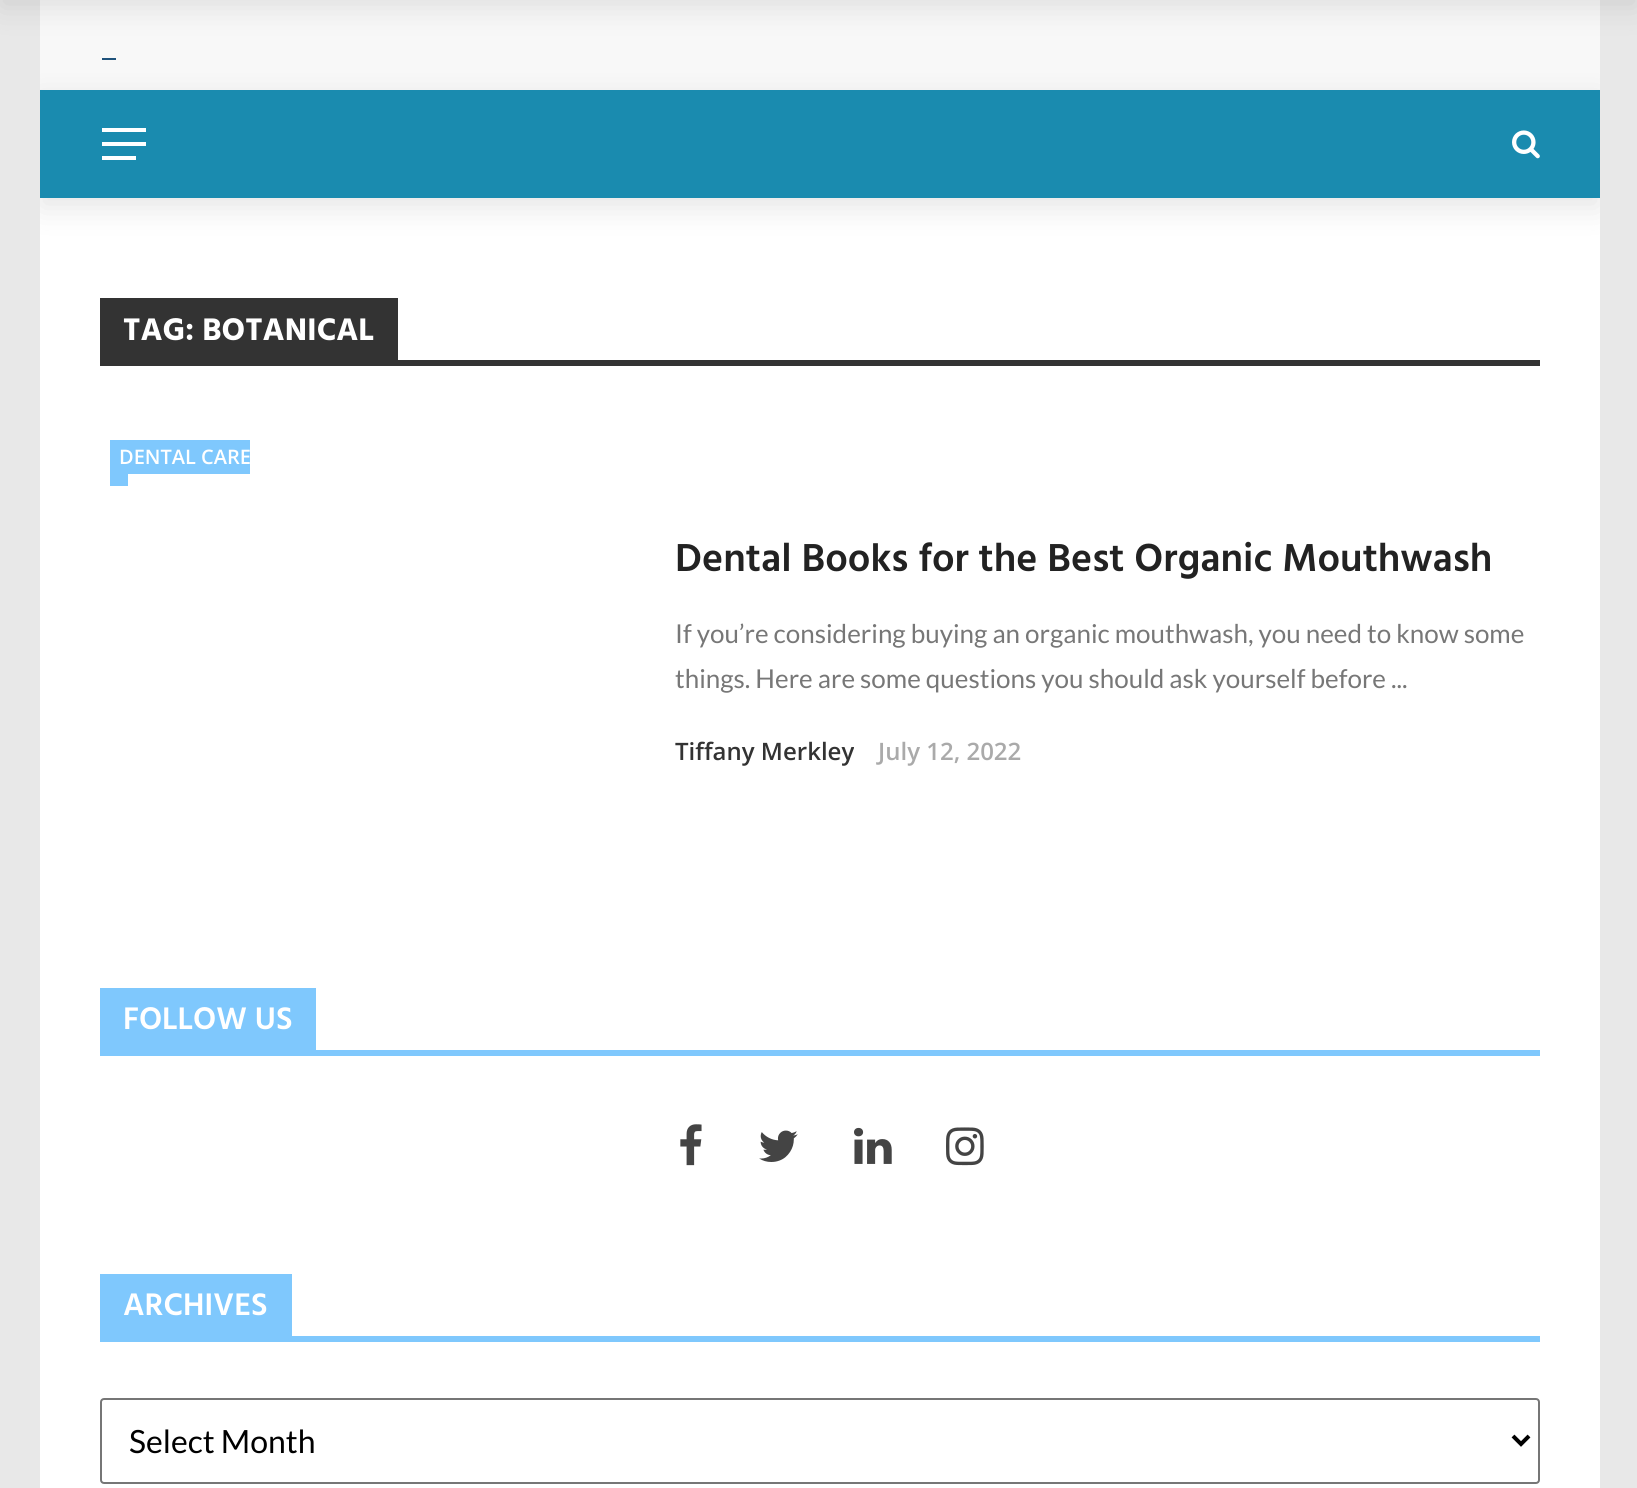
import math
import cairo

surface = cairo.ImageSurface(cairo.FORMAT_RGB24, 1637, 1488)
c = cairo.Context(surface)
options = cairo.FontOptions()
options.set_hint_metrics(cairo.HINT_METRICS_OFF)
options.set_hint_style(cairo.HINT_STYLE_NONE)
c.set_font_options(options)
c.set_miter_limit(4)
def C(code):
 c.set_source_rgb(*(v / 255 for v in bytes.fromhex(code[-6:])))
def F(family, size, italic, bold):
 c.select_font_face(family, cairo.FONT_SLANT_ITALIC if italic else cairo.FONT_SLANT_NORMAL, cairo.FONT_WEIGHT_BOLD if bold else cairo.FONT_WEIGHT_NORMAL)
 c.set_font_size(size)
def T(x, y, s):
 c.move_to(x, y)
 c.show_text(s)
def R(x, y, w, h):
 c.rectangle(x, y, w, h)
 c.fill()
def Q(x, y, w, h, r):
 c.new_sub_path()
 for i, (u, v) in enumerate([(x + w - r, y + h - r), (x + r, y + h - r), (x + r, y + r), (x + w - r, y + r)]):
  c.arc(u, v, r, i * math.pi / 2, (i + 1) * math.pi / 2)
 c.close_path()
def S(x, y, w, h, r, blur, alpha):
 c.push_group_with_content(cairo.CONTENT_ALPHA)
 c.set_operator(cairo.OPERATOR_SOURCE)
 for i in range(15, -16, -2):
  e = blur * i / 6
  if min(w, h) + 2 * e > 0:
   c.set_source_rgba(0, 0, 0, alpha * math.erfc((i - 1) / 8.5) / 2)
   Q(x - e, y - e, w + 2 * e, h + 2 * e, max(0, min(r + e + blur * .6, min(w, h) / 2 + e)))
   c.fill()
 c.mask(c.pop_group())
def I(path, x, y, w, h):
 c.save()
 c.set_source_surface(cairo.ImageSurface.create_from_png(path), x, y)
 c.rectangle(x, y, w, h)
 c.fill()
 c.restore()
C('e8e8e8')
c.paint()
C('f8f8f8')
R(40,0,1560,90)
C('1f527b')
R(102,58,14,2)
C('ffffff')
R(40,198,1560,1290)
c.save()
c.rectangle(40,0,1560,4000)
c.clip()
C('000000')
S(40,100,1560,108,0,15,.1)
c.restore()
C('1a8baf')
R(40,90,1560,108)
C('ffffff')
R(102,128,44,4)
R(102,142,44,4)
R(102,156,34,4)
I('1.png',1512,130,28,29)
C('000000')
S(0,-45,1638,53,0,15,.1)
C('333333')
R(100,298,298,62)
F('Hind',32,0,1)
C('ffffff')
T(123,340,'TAG: BOTANICAL')
C('333333')
R(100,360,1440,6)
C('7fc8fd')
R(110,440,140,34)
F('Open Sans SemiBold',20,0,0)
C('ffffff')
T(119,464,'DENTAL CARE')
C('7fc8fd')
R(110,474,18,12)
F('Hind SemiBold',40,0,0)
C('222222')
T(675,571,'Dental Books for the Best Organic Mouthwash')
F('Lato',26,0,0)
C('777777')
T(675,643,'If you’re considering buying an organic mouthwash, you need to know some')
T(675,688,'things. Here are some questions you should ask yourself before ...')
F('Open Sans SemiBold',24,0,0)
C('333333')
T(675,760,'Tiffany Merkley')
C('aaaaaa')
T(878,760,'July 12, 2022')
C('7fc8fd')
R(100,988,216,68)
F('Hind SemiBold',32,0,0)
C('ffffff')
T(123,1029,'FOLLOW US')
C('7fc8fd')
R(316,1050,1224,6)
I('2.png',680,1124,22,42)
I('3.png',759,1130,39,32)
I('4.png',854,1127,38,37)
I('5.png',946,1127,38,39)
R(100,1274,192,68)
C('ffffff')
T(123,1315,'ARCHIVES')
C('7fc8fd')
R(292,1336,1248,6)
Q(101,1399,1438,84,3)
C('767676')
c.stroke()
c.new_path()
c.move_to(1513,1436)
c.line_to(1521,1444)
c.line_to(1529,1436)
C('000000')
c.set_line_width(4)
c.stroke()
F('Lato',32,0,0)
T(129,1453,'Select Month')
surface.write_to_png('o.png')
